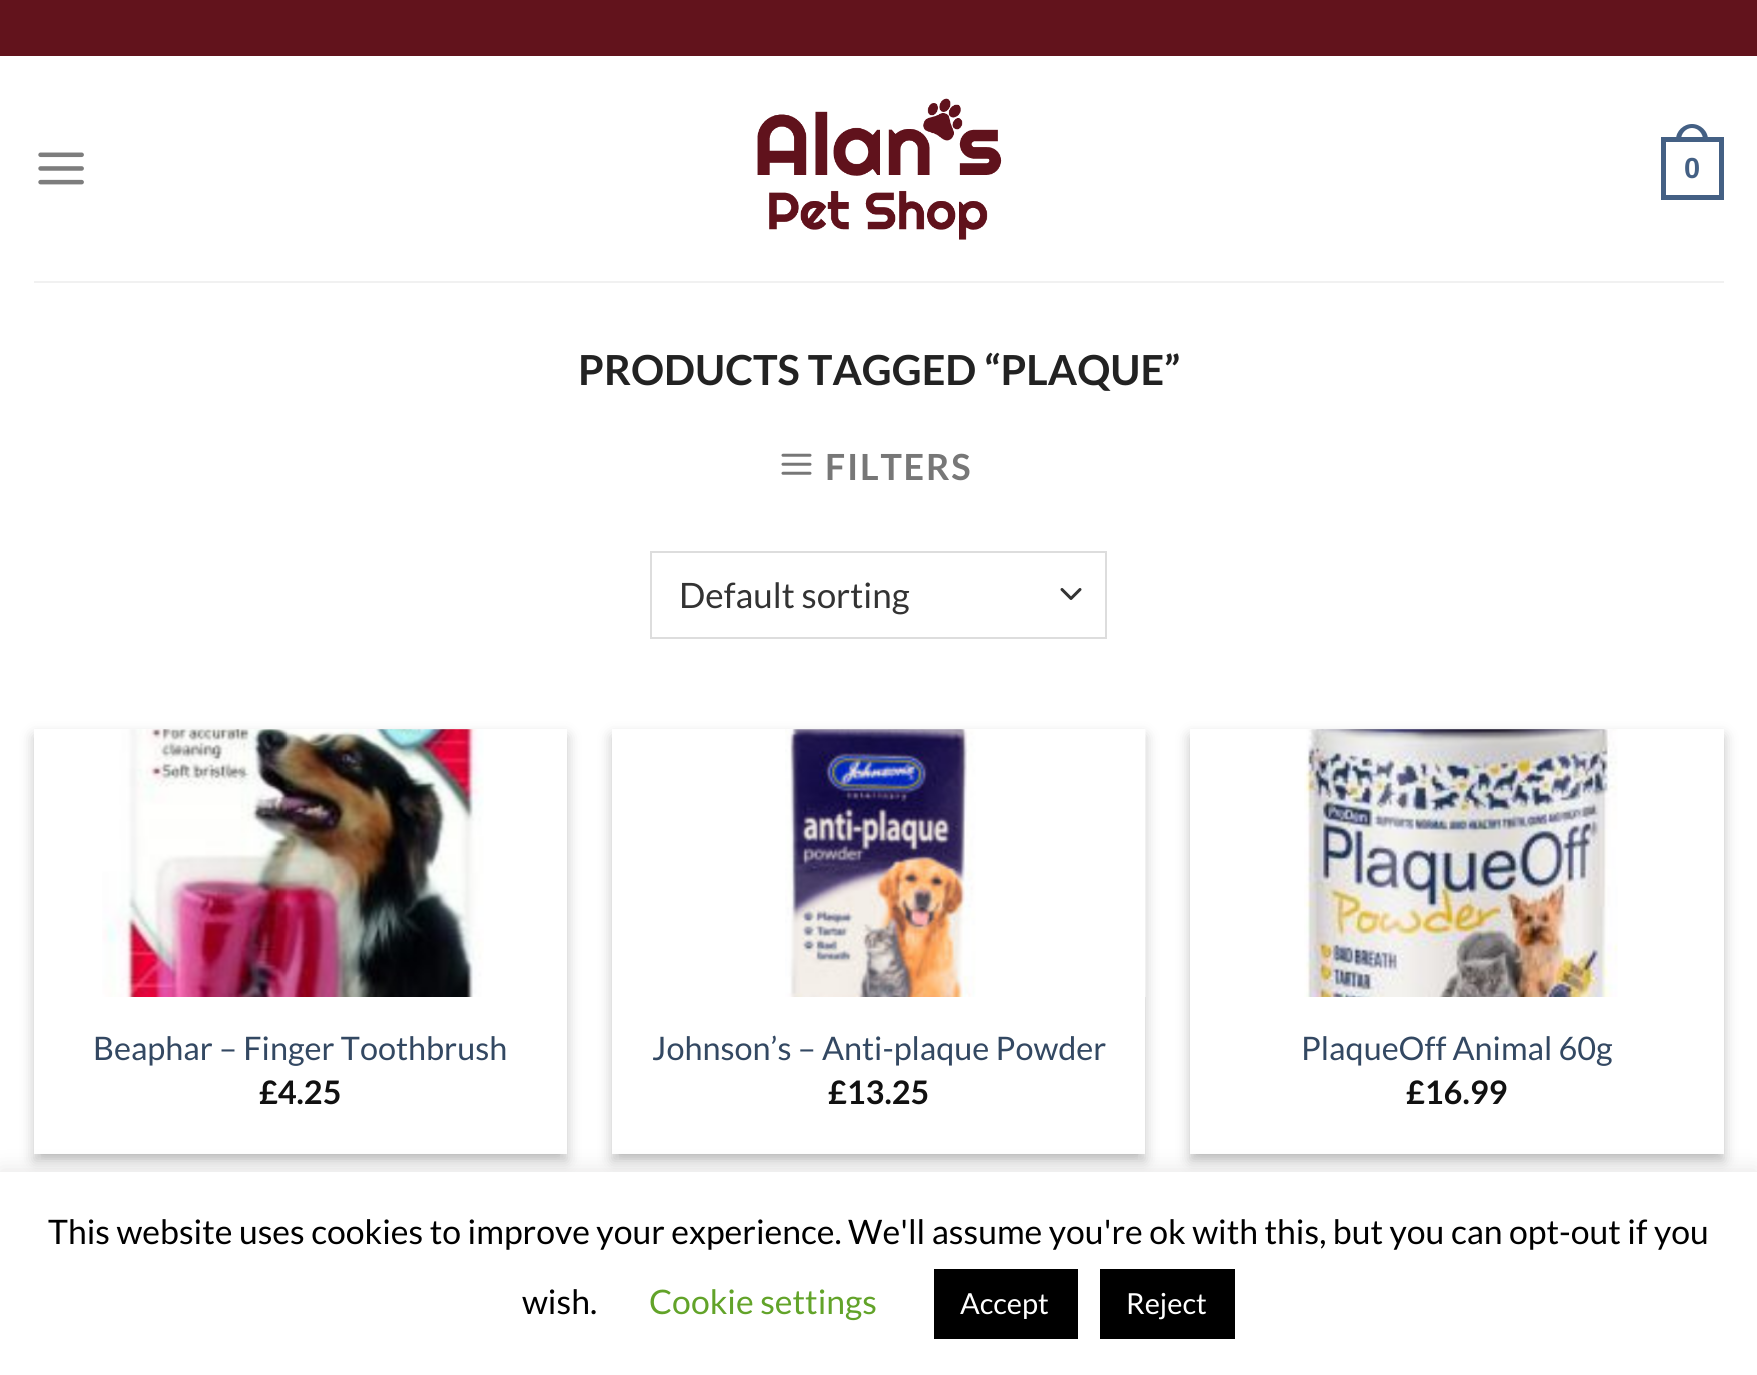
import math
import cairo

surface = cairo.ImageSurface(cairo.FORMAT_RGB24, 1757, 1375)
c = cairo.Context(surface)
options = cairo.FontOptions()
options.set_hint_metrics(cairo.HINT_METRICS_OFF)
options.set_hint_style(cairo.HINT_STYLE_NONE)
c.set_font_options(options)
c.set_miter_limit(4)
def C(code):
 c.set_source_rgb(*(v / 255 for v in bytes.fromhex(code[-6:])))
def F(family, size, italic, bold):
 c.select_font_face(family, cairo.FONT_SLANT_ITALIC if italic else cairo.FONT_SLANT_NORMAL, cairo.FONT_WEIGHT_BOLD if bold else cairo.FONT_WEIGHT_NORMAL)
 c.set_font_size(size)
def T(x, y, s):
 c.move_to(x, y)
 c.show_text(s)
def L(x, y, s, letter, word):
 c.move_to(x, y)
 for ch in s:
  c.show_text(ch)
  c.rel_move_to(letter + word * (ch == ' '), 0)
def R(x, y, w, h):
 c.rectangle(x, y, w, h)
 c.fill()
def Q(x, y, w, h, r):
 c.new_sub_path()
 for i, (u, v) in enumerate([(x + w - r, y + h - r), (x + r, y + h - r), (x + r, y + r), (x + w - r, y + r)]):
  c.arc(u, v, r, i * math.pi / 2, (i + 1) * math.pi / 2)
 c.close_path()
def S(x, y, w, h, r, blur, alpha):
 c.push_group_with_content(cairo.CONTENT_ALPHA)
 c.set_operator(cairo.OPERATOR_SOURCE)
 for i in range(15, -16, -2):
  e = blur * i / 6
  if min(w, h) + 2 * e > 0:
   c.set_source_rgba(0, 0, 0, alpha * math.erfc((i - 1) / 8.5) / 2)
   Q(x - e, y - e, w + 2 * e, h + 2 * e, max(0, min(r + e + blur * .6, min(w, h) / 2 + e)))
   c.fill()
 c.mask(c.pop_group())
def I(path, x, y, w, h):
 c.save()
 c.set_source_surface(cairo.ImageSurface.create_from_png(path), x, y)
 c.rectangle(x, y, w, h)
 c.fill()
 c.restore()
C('ffffff')
c.paint()
C('62131c')
R(0,0,1757,56)
I('1.png',38,152,46,33)
I('2.png',757,98,245,142)
c.rectangle(1663.5,139.5,58,58)
C('446084')
c.set_line_width(5)
c.stroke()
c.set_fill_rule(cairo.FILL_RULE_EVEN_ODD)
c.new_path()
c.move_to(1692,124)
c.curve_to(1700.5,124,1708,131,1708,139.5)
c.line_to(1708,142)
c.line_to(1676,142)
c.line_to(1676,139.5)
c.curve_to(1676,131,1683.5,124,1692,124)
c.close_path()
c.move_to(1692,128)
c.curve_to(1698,128,1703,133.5,1703,139.5)
c.line_to(1703,142)
c.line_to(1681,142)
c.line_to(1681,139.5)
c.curve_to(1681,133.5,1686,128,1692,128)
c.close_path()
c.fill()
F('Liberation Sans',29,0,1)
T(1684,178,'0')
C('f1f1f1')
R(34,281,1690,2)
F('Lato',41.4,0,1)
C('222222')
T(578,385,'PRODUCTS TAGGED “PLAQUE”')
I('3.png',781,453,31,22)
F('Lato',36,0,1)
C('777777')
L(825,480,'FILTERS',1.75,0)
c.new_path()
c.move_to(1062,589.5)
c.line_to(1071,598.5)
c.line_to(1080,589.5)
C('333333')
c.set_line_width(3)
c.set_line_cap(cairo.LINE_CAP_ROUND)
c.set_line_join(cairo.LINE_JOIN_ROUND)
c.stroke()
c.rectangle(651,552,455,86)
C('dddddd')
c.set_line_width(2)
c.set_line_cap(cairo.LINE_CAP_BUTT)
c.set_line_join(cairo.LINE_JOIN_MITER)
c.stroke()
F('Lato',35,0,0)
C('333333')
T(679,608,'Default sorting')
c.save()
c.new_path()
c.move_to(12,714)
c.line_to(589,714)
c.line_to(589,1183)
c.line_to(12,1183)
c.close_path()
c.move_to(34,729)
c.line_to(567,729)
c.line_to(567,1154)
c.line_to(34,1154)
c.close_path()
c.clip()
C('000000')
S(34,736,533,425,0,7,.23)
c.restore()
c.save()
c.set_fill_rule(cairo.FILL_RULE_WINDING)
c.rectangle(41,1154,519,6)
c.clip()
C('000000')
S(43,745,515,407,0,7,.16)
c.restore()
I('4.png',102,729,382,268)
F('Lato',32.4,0,0)
C('334862')
T(93,1060,'Beaphar – Finger Toothbrush')
F('Lato',32.4,0,1)
C('111111')
T(259,1104,'£4.25')
c.save()
c.new_path()
c.move_to(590,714)
c.line_to(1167,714)
c.line_to(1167,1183)
c.line_to(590,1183)
c.close_path()
c.move_to(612,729)
c.line_to(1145,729)
c.line_to(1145,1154)
c.line_to(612,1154)
c.close_path()
c.clip()
C('000000')
S(612,736,533,425,0,7,.23)
c.restore()
c.save()
c.set_fill_rule(cairo.FILL_RULE_WINDING)
c.rectangle(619,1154,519,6)
c.clip()
C('000000')
S(621,745,515,407,0,7,.16)
c.restore()
I('5.png',785,729,361,268)
F('Lato',32.4,0,0)
C('334862')
T(652,1060,'Johnson’s – Anti-plaque Powder')
F('Lato',32.4,0,1)
C('111111')
T(828,1104,'£13.25')
C('000000')
S(1190,736,534,425,0,7,.23)
S(1199,745,516,407,0,7,.16)
C('ffffff')
R(1190,729,534,425)
I('6.png',1304,729,314,268)
F('Lato',32.4,0,0)
C('334862')
T(1301,1060,'PlaqueOff Animal 60g')
F('Lato',32.4,0,1)
C('111111')
T(1406,1104,'£16.99')
C('acabab')
S(0,1170,1757,205,0,11,.3)
C('ffffff')
R(0,1172,1757,203)
F('Lato',33.75,0,0)
C('000000')
T(48,1244,'This website uses cookies to improve your experience. We\'ll assume you\'re ok with this, but you can opt-out if you')
T(522,1314,'wish.')
C('62a329')
T(649,1314,'Cookie settings')
C('000000')
R(934,1269,144,70)
F('Lato',29,0,0)
C('ffffff')
T(960,1314,'Accept')
C('000000')
R(1100,1269,135,70)
C('ffffff')
T(1126,1314,'Reject')
surface.write_to_png('o.png')
